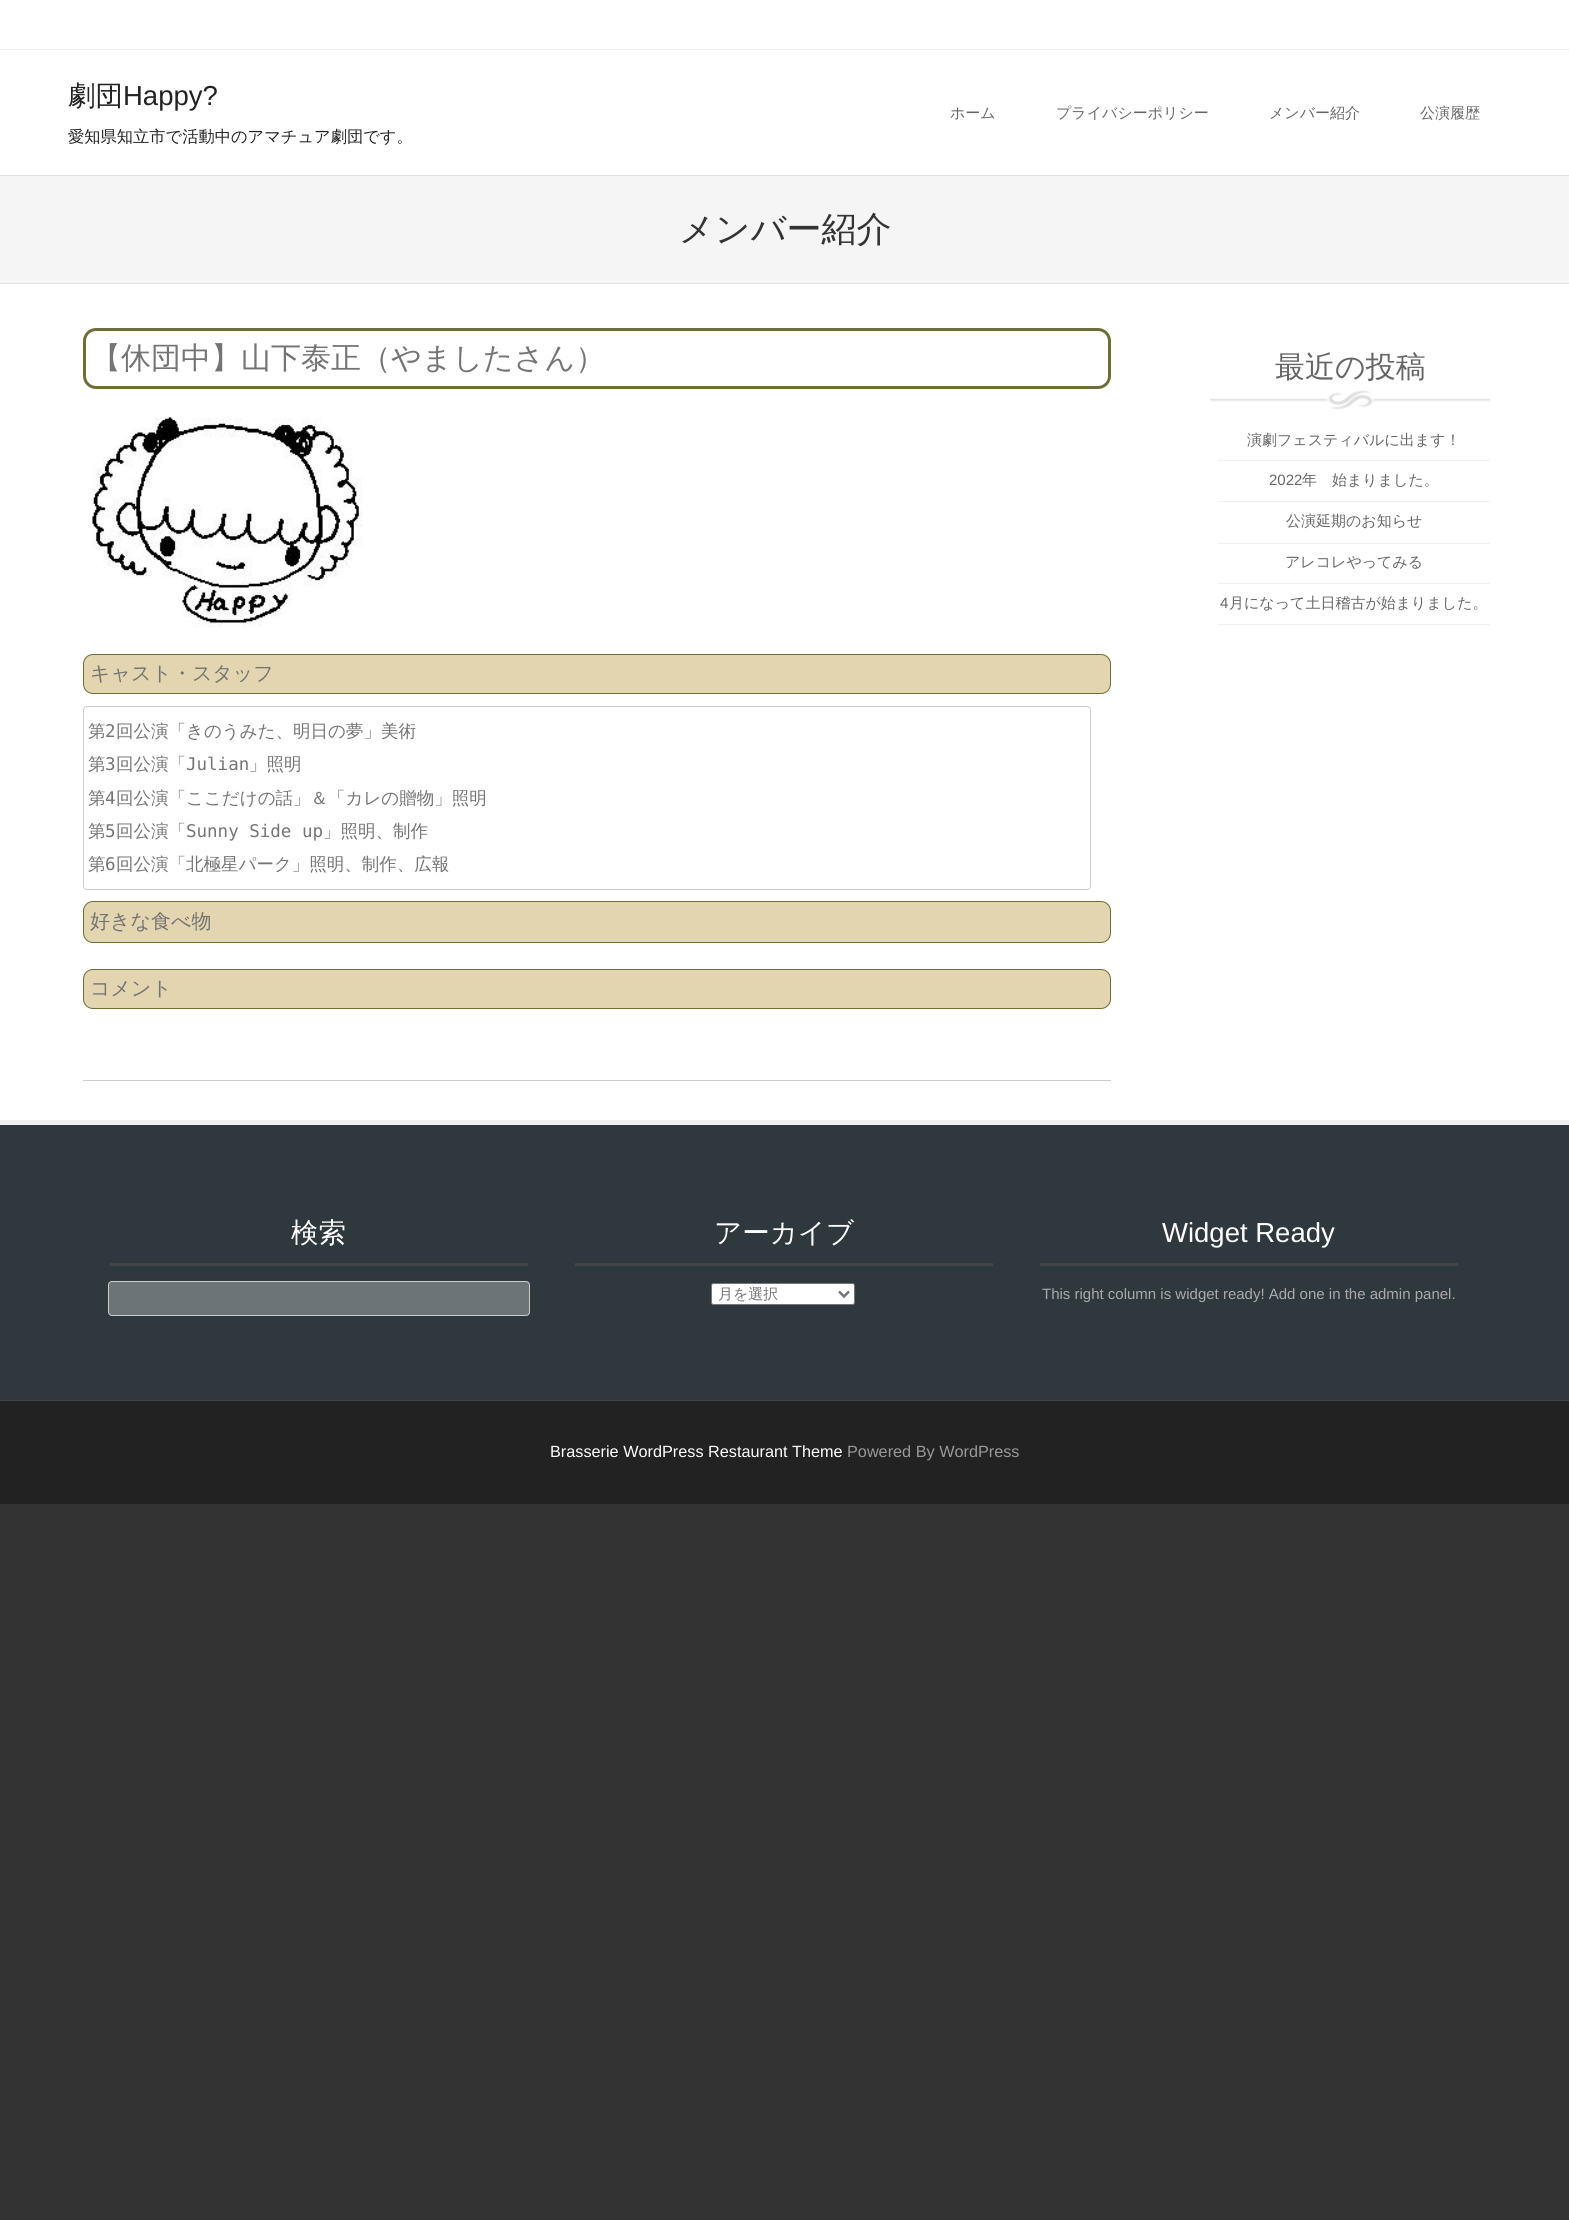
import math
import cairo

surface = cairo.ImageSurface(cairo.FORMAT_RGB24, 1569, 2220)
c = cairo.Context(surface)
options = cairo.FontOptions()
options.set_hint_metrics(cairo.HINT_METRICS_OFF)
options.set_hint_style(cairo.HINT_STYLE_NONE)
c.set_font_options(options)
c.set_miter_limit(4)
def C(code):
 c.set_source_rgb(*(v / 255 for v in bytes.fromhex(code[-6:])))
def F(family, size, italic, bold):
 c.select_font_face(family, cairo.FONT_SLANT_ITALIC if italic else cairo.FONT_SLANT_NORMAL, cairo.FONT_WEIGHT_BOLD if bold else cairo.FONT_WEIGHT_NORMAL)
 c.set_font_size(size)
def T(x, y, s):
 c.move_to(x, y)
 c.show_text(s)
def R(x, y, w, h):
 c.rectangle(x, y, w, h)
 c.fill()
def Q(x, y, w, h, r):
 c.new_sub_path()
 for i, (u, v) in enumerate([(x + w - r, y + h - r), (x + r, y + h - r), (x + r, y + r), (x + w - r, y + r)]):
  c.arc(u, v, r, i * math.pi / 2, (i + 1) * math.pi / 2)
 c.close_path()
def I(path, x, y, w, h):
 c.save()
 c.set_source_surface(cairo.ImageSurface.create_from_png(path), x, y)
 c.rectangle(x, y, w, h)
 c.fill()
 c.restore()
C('333333')
c.paint()
C('ffffff')
R(0,0,1569,1120)
C('efefef')
R(0,49,1569,1)
F('WenQuanYi Zen Hei Medium',27.5,0,0)
C('222222')
T(68,105,'劇団')
F('Liberation Sans',27.5,0,0)
T(123,105,'Happy?')
F('WenQuanYi Zen Hei Medium',16.25,0,0)
T(68,142,'愛知県知立市で活動中のアマチュア劇団です。')
F('WenQuanYi Zen Hei Medium',15,0,0)
C('666666')
T(950,118,'ホーム')
T(1056,118,'プライバシーポリシー')
T(1269,118,'メンバー紹介')
T(1420,118,'公演履歴')
C('f5f5f5')
R(0,176,1569,107)
C('e1e1e1')
R(0,175,1569,1)
R(0,283,1569,1)
F('WenQuanYi Zen Hei Medium',35,0,0)
C('333333')
T(679,241,'メンバー紹介')
Q(84.5,329.5,1025,58,11.5)
C('6d6e37')
c.set_line_width(3)
c.stroke()
F('WenQuanYi Zen Hei Medium',30,0,0)
C('747474')
T(91,368,'【休団中】山下泰正（やましたさん）')
I('1.png',92,417,271,211)
C('e3d5af')
Q(83.5,654.5,1027,39,9.5)
c.fill_preserve()
C('6d6e37')
c.set_line_width(1)
c.stroke()
F('WenQuanYi Zen Hei Medium',20,0,0)
C('747474')
T(90,680,'キャスト・スタッフ')
Q(83.5,706.5,1007,183,3.5)
C('cccccc')
c.stroke()
F('WenQuanYi Zen Hei Medium',17.5,0,0)
C('747474')
T(88,737,'第')
F('DejaVu Sans Mono',17.5,0,0)
T(105,737,'2')
F('WenQuanYi Zen Hei Medium',17.5,0,0)
T(116,737,'回公演「きのうみた、明日の夢」美術')
T(88,770,'第')
F('DejaVu Sans Mono',17.5,0,0)
T(105,770,'3')
F('WenQuanYi Zen Hei Medium',17.5,0,0)
T(116,770,'回公演「')
F('DejaVu Sans Mono',17.5,0,0)
T(186,770,'Julian')
F('WenQuanYi Zen Hei Medium',17.5,0,0)
T(249,770,'」照明')
T(88,804,'第')
F('DejaVu Sans Mono',17.5,0,0)
T(105,804,'4')
F('WenQuanYi Zen Hei Medium',17.5,0,0)
T(116,804,'回公演「ここだけの話」＆「カレの贈物」照明')
T(88,837,'第')
F('DejaVu Sans Mono',17.5,0,0)
T(105,837,'5')
F('WenQuanYi Zen Hei Medium',17.5,0,0)
T(116,837,'回公演「')
F('DejaVu Sans Mono',17.5,0,0)
T(186,837,'Sunny Side up')
F('WenQuanYi Zen Hei Medium',17.5,0,0)
T(323,837,'」照明、制作')
T(88,870,'第')
F('DejaVu Sans Mono',17.5,0,0)
T(105,870,'6')
F('WenQuanYi Zen Hei Medium',17.5,0,0)
T(116,870,'回公演「北極星パーク」照明、制作、広報')
C('e3d5af')
Q(83.5,901.5,1027,41,9.5)
c.fill_preserve()
C('6d6e37')
c.stroke()
F('WenQuanYi Zen Hei Medium',20,0,0)
C('747474')
T(90,928,'好きな食べ物')
C('e3d5af')
Q(83.5,969.5,1027,39,9.5)
c.fill_preserve()
C('6d6e37')
c.stroke()
C('747474')
T(90,995,'コメント')
C('cccccc')
R(83,1080,1028,1)
I('2.png',1210,390,280,19)
F('WenQuanYi Zen Hei Medium',30,0,0)
C('666666')
T(1275,377,'最近の投稿')
C('ecf1f5')
R(1218,460,272,1)
F('WenQuanYi Zen Hei Medium',15,0,0)
C('666666')
T(1247,445,'演劇フェスティバルに出ます！')
C('ecf1f5')
R(1218,501,272,1)
F('Liberation Sans',15,0,0)
C('666666')
T(1269,485,'2022')
F('WenQuanYi Zen Hei Medium',15,0,0)
T(1302,485,'年　始まりました。')
C('ecf1f5')
R(1218,543,272,1)
C('666666')
T(1286,526,'公演延期のお知らせ')
C('ecf1f5')
R(1218,583,272,1)
C('666666')
T(1285,567,'アレコレやってみる')
C('ecf1f5')
R(1218,624,272,1)
F('Liberation Sans',15,0,0)
C('666666')
T(1220,608,'4')
F('WenQuanYi Zen Hei Medium',15,0,0)
T(1229,608,'月になって土日稽古が始まりました。')
C('2f383d')
R(0,1125,1569,275)
C('efefef')
R(0,1120,1569,5)
C('444444')
R(110,1263,418,3)
F('WenQuanYi Zen Hei Medium',27.5,0,0)
C('ffffff')
T(291,1242,'検索')
C('6d7477')
Q(108.5,1281.5,421,34,3.5)
c.fill_preserve()
C('cccccc')
c.stroke()
C('444444')
R(575,1263,418,3)
C('ffffff')
T(714,1242,'アーカイブ')
Q(711.5,1283.5,143,21,2)
c.fill_preserve()
C('767676')
c.stroke()
c.new_path()
c.move_to(839,1291.5)
c.line_to(844,1296.5)
c.line_to(849,1291.5)
C('747474')
c.set_line_width(2.5)
c.stroke()
F('WenQuanYi Zen Hei Medium',15,0,0)
T(718,1299,'月を選択')
C('444444')
R(1040,1263,418,3)
F('Liberation Sans',27.5,0,0)
C('ffffff')
T(1162,1242,'Widget Ready')
F('Liberation Sans',15,0,0)
C('aaaaaa')
T(1042,1299,'This right column is widget ready! Add one in the admin panel.')
C('222222')
R(0,1401,1569,103)
C('444444')
R(0,1400,1569,1)
F('Liberation Sans',16.25,0,0)
C('ffffff')
T(550,1457,'Brasserie WordPress Restaurant Theme')
C('999999')
T(847,1457,'Powered By WordPress')
surface.write_to_png('o.png')
